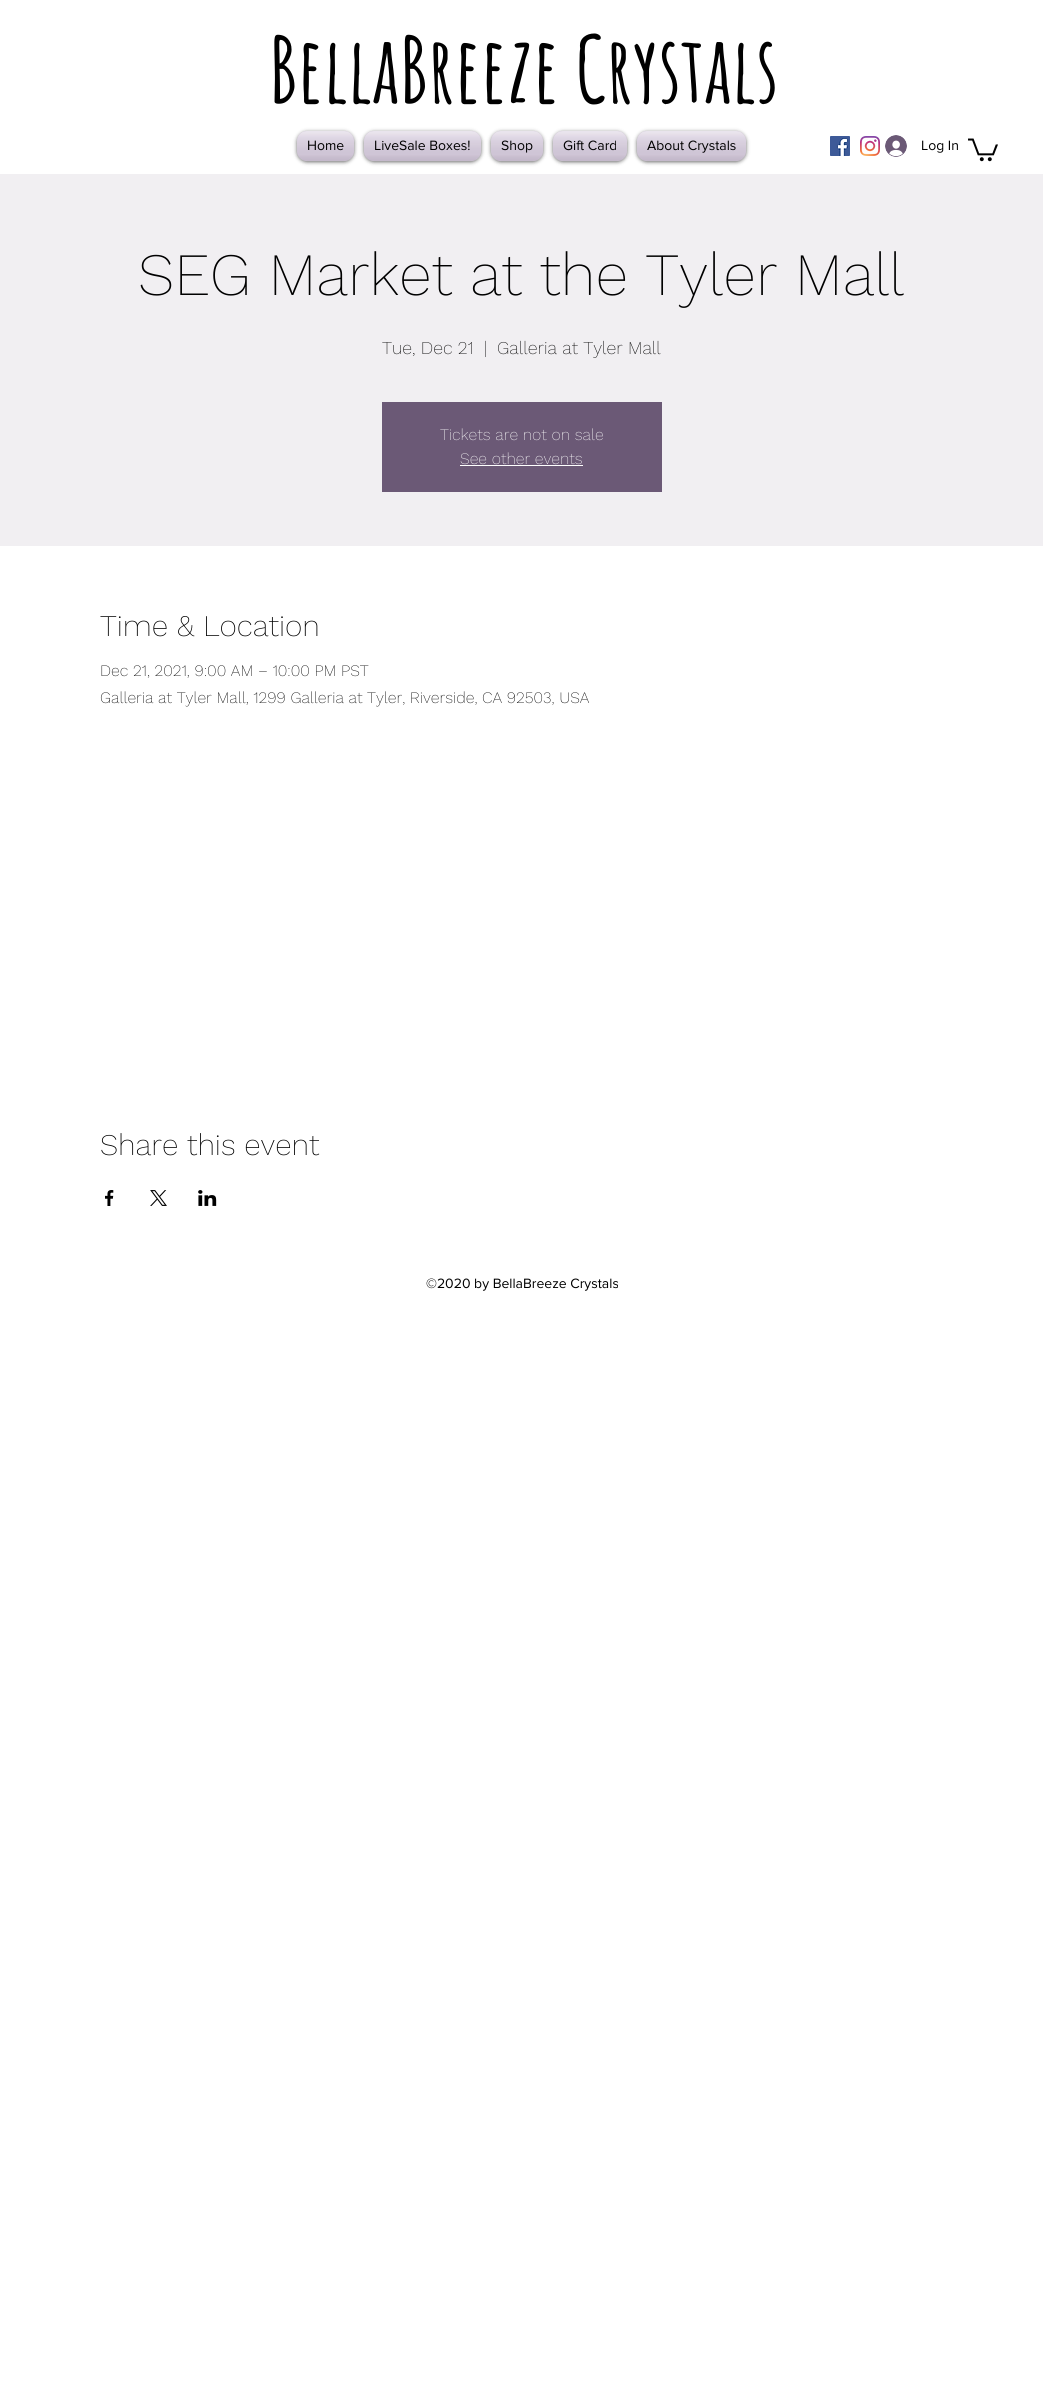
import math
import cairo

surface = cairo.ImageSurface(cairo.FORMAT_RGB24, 1043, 2405)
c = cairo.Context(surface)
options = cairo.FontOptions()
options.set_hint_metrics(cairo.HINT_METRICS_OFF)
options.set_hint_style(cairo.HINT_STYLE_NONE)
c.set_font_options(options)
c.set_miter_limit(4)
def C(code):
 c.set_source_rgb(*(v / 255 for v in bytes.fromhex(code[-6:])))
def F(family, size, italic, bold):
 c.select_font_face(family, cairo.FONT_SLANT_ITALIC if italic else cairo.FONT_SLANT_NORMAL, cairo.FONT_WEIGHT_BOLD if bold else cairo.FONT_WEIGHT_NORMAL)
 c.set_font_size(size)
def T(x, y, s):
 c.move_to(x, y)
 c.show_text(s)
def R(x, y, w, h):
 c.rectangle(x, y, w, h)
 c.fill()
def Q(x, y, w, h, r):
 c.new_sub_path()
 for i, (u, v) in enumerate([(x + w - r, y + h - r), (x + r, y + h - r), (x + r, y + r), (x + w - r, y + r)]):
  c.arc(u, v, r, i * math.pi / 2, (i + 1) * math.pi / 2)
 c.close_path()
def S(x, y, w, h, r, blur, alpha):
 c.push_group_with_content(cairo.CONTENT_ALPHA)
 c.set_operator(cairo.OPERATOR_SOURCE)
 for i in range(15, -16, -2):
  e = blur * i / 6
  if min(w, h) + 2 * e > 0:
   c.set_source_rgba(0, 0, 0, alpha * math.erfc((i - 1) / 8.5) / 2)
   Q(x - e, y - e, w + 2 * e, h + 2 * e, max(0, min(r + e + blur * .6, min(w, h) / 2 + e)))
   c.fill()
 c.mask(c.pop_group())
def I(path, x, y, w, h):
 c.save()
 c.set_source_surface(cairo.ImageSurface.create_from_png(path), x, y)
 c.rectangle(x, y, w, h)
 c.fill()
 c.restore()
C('ffffff')
c.paint()
F('Amatic SC',91,0,1)
C('000000')
T(269,103,'BellaBreeze Crystals')
C('000000')
S(297,132,57,30,10,2,.6)
C('e0d2e9')
Q(297,131,57,30,10)
c.fill()
I('1.png',297,131,57,30)
I('2.png',297,131,57,30)
F('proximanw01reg',14,0,0)
C('000000')
T(307,150,'Home')
C('000000')
S(364,132,117,30,10,2,.6)
C('e0d2e9')
Q(364,131,117,30,10)
c.fill()
I('3.png',364,131,117,30)
I('4.png',364,131,117,30)
C('000000')
T(374,150,'LiveSale Boxes!')
C('000000')
S(491,132,52,30,10,2,.6)
C('e0d2e9')
Q(491,131,52,30,10)
c.fill()
I('5.png',491,131,52,30)
I('6.png',491,131,52,30)
C('000000')
T(501,150,'Shop')
C('000000')
S(553,132,74,30,10,2,.6)
C('e0d2e9')
Q(553,131,74,30,10)
c.fill()
I('7.png',553,131,74,30)
I('8.png',553,131,74,30)
C('000000')
T(563,150,'Gift Card')
C('000000')
S(637,132,109,30,10,2,.6)
C('e0d2e9')
Q(637,131,109,30,10)
c.fill()
I('9.png',637,131,109,30)
I('10.png',637,131,109,30)
C('000000')
T(647,150,'About Crystals')
I('11.png',830,136,20,20)
I('12.png',860,136,20,20)
I('13.png',885,135,22,22)
T(921,150,'Log In')
I('14.png',968,138,30,24)
C('f1eff2')
R(0,174,1043,372)
F('Work Sans ExtraLight',60,0,0)
C('000000')
T(138,295,'SEG Market at the Tyler Mall')
F('Work Sans ExtraLight',18,0,0)
T(382,354,'Tue, Dec 21')
T(484,354,'|')
T(497,354,'Galleria at Tyler Mall')
C('6b5976')
R(382,402,280,90)
F('Work Sans ExtraLight',16,0,0)
C('ffffff')
T(440,440,'Tickets are not on sale')
T(460,464,'See other events')
R(460,465,123,1)
F('Work Sans ExtraLight',30,0,0)
C('000000')
T(100,636,'Time & Location')
F('Work Sans ExtraLight',16,0,0)
T(100,676,'Dec 21, 2021, 9:00 AM – 10:00 PM PST')
T(100,703,'Galleria at Tyler Mall, 1299 Galleria at Tyler, Riverside, CA 92503, USA')
F('Work Sans ExtraLight',30,0,0)
T(100,1155,'Share this event')
I('15.png',105,1190,9,16)
I('16.png',150,1190,17,16)
I('17.png',198,1190,19,16)
F('proximanw01reg',14,0,0)
T(426,1288,'©2020 by BellaBreeze Crystals')
surface.write_to_png('o.png')
